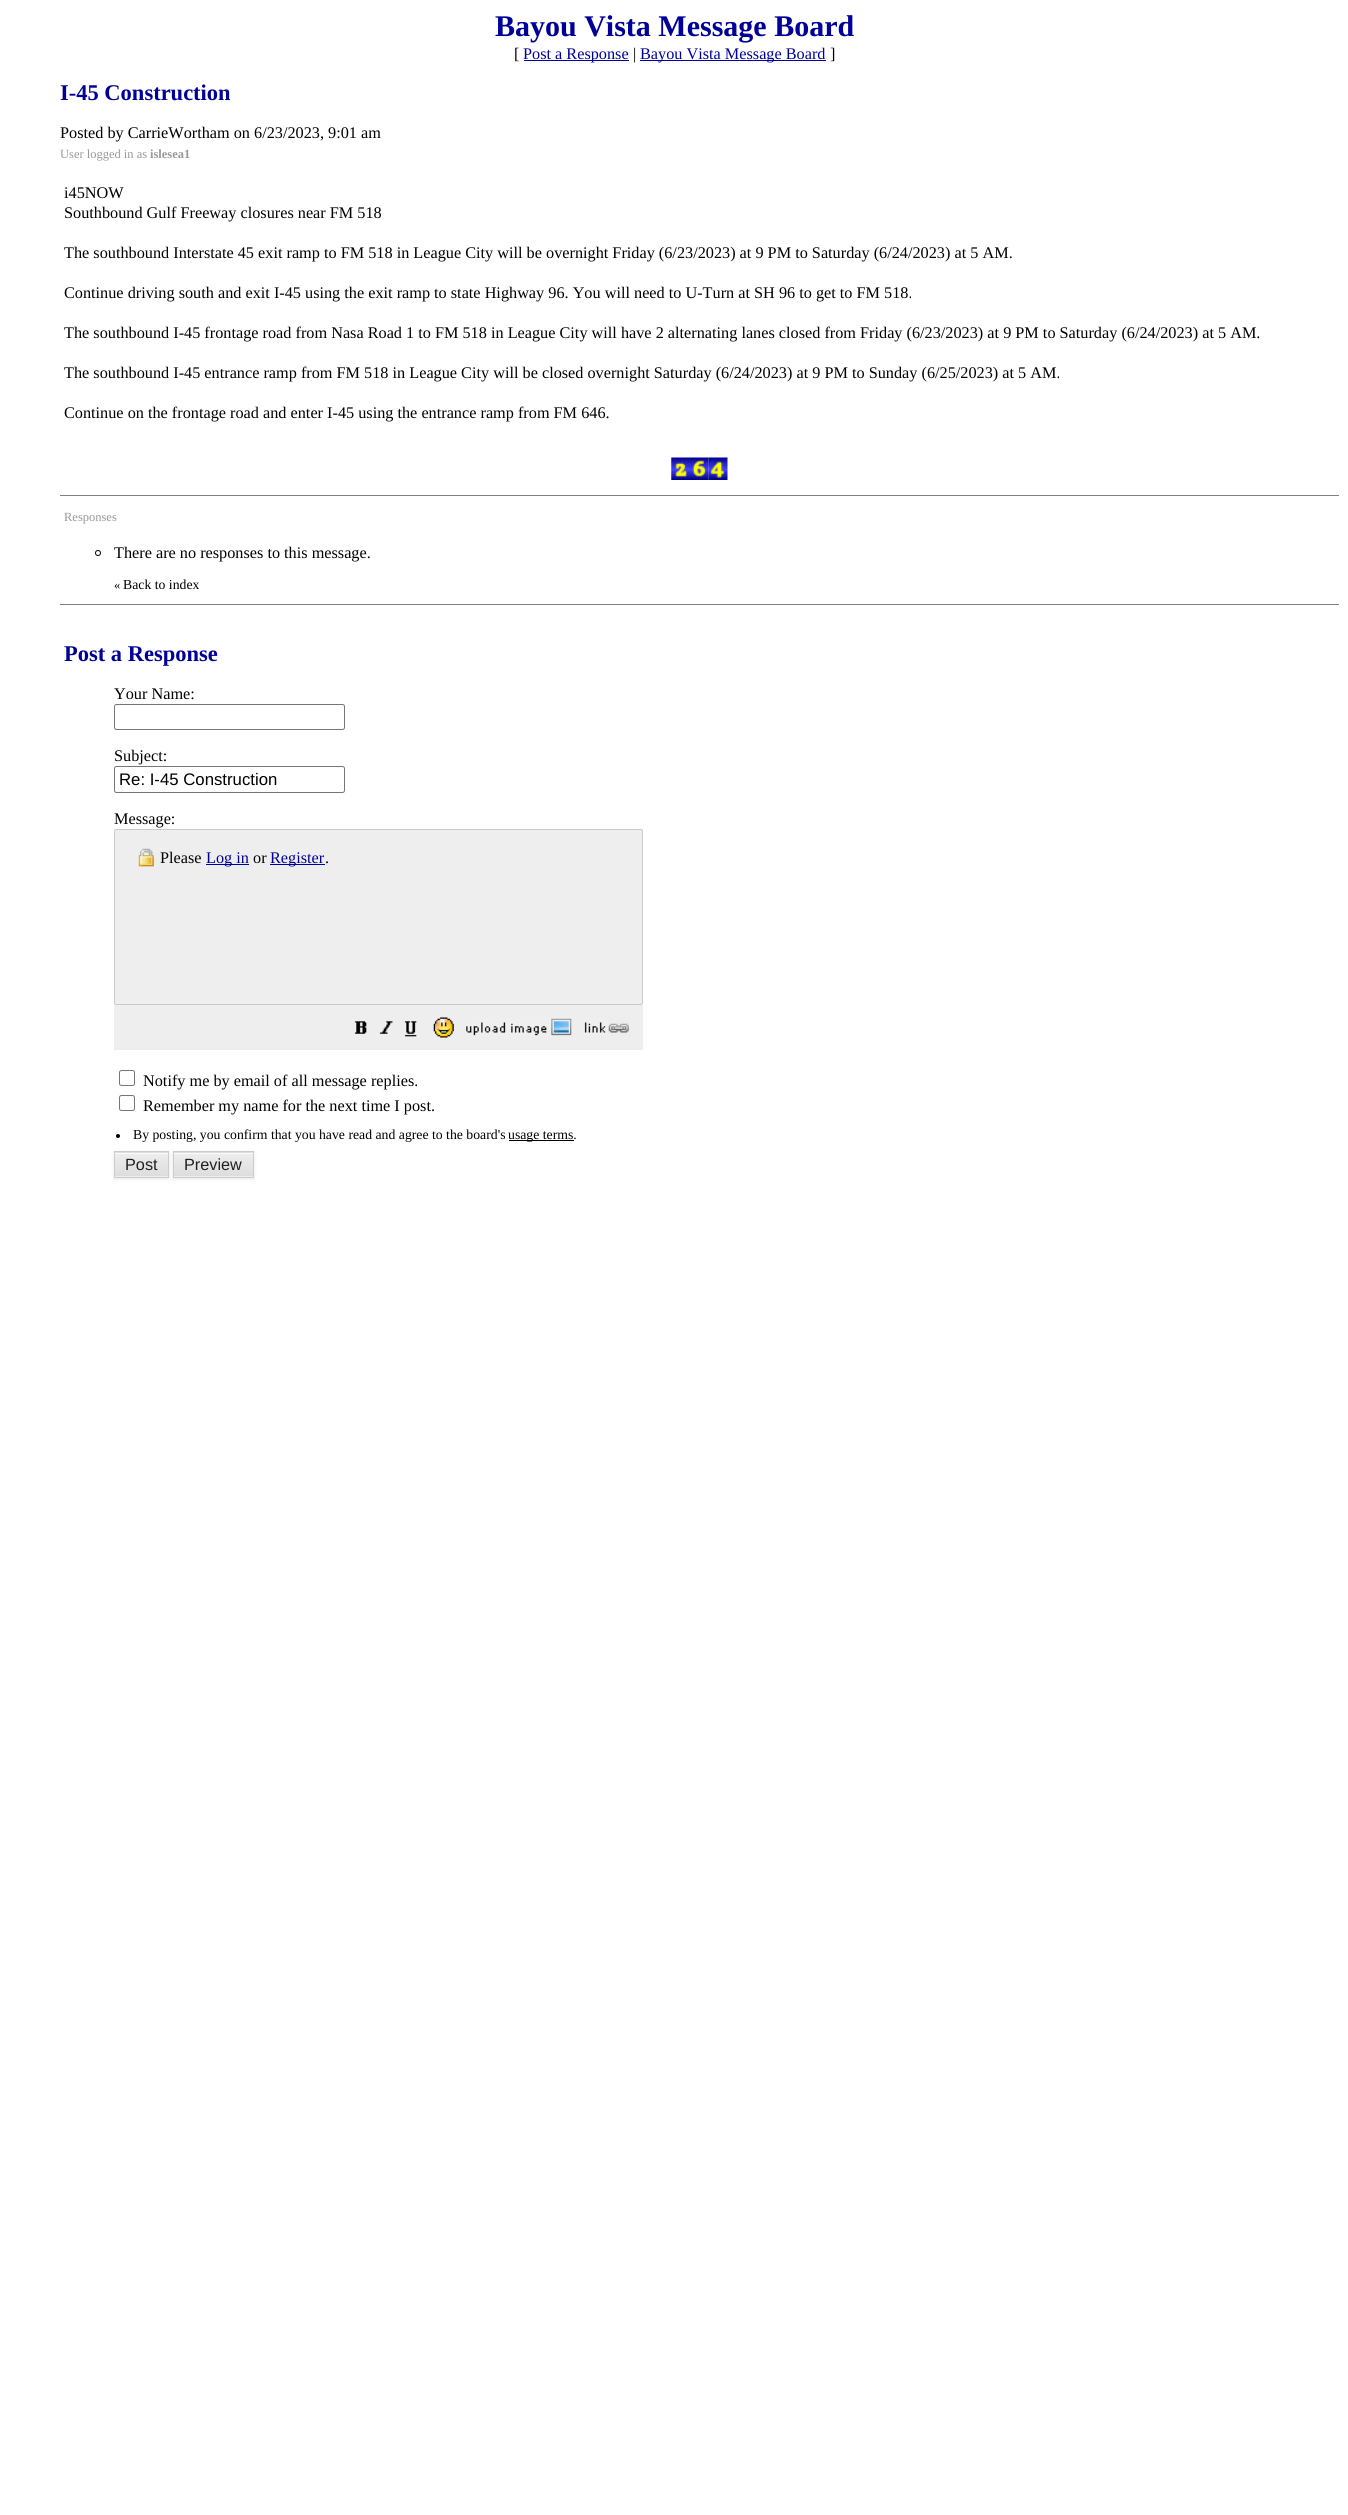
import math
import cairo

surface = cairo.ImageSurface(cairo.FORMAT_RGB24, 1348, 2515)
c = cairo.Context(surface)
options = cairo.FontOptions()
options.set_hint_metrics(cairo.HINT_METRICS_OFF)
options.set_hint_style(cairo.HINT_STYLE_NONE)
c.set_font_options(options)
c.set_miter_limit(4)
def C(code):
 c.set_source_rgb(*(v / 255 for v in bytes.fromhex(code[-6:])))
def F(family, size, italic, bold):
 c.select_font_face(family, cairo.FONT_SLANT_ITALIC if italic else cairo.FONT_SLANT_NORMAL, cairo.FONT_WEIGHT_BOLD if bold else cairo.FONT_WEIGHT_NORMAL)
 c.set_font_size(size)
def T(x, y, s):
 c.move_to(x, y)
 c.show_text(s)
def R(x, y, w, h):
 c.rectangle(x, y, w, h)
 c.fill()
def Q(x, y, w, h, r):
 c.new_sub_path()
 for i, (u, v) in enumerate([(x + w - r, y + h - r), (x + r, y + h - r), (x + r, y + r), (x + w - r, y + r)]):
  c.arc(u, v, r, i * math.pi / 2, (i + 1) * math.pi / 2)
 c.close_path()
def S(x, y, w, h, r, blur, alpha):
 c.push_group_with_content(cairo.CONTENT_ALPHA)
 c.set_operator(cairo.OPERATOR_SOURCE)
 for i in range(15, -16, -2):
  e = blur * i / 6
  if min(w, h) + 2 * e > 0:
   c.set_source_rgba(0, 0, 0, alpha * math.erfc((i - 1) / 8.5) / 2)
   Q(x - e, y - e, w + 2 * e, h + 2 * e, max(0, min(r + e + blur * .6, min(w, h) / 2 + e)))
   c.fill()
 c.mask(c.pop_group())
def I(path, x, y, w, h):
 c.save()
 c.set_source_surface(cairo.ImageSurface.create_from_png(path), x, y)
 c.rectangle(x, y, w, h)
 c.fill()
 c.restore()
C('ffffff')
c.paint()
F('Liberation Serif',30,0,1)
C('000099')
T(495,36,'Bayou Vista Message Board')
F('Liberation Serif',16.25,0,0)
C('000000')
T(514,59,'[')
C('000099')
R(524,60,105,1)
T(523,59,'Post a Response')
C('000000')
T(633,59,'|')
C('000099')
R(640,60,186,1)
T(640,59,'Bayou Vista Message Board')
C('000000')
T(830,59,']')
F('Liberation Serif',22.5,0,1)
C('000099')
T(60,100,'I-45 Construction')
F('Liberation Serif',16.25,0,0)
C('000000')
T(60,138,'Posted by CarrieWortham on 6/23/2023, 9:01 am')
F('Liberation Serif',12.5,0,0)
C('999999')
T(60,158,'User logged in as')
F('Liberation Serif',12.5,0,1)
T(150,158,'islesea1')
F('Liberation Serif',16.25,0,0)
C('000000')
T(64,198,'i45NOW')
T(64,218,'Southbound Gulf Freeway closures near FM 518')
T(64,258,'The southbound Interstate 45 exit ramp to FM 518 in League City will be overnight Friday (6/23/2023) at 9 PM to Saturday (6/24/2023) at 5 AM.')
T(64,298,'Continue driving south and exit I-45 using the exit ramp to state Highway 96. You will need to U-Turn at SH 96 to get to FM 518.')
T(64,338,'The southbound I-45 frontage road from Nasa Road 1 to FM 518 in League City will have 2 alternating lanes closed from Friday (6/23/2023) at 9 PM to Saturday (6/24/2023) at 5 AM.')
T(64,378,'The southbound I-45 entrance ramp from FM 518 in League City will be closed overnight Saturday (6/24/2023) at 9 PM to Sunday (6/25/2023) at 5 AM.')
T(64,418,'Continue on the frontage road and enter I-45 using the entrance ramp from FM 646.')
I('1.png',671,457,19,23)
I('2.png',690,457,19,23)
I('3.png',708,457,20,23)
C('808080')
R(60,495,1279,1)
F('Liberation Serif',12.5,0,0)
C('999999')
T(64,521,'Responses')
c.new_path()
c.arc(98,553,2.5,0,2 * math.pi)
C('000000')
c.set_line_width(1)
c.stroke()
F('Liberation Serif',16.25,0,0)
T(114,558,'There are no responses to this message.')
F('Liberation Serif',12.5,0,0)
T(114,589,'«')
F('Liberation Serif',13.75,0,0)
T(123,589,'Back to index')
C('808080')
R(60,604,1279,1)
F('Liberation Serif',22.5,0,1)
C('000099')
T(64,661,'Post a Response')
F('Liberation Serif',16.25,0,0)
C('000000')
T(114,699,'Your Name:')
Q(114.5,704.5,230,25,2)
C('767676')
c.stroke()
C('000000')
T(114,761,'Subject:')
Q(114.5,766.5,230,26,2)
C('767676')
c.stroke()
F('Liberation Sans',16.75,0,0)
C('000000')
T(119,785,'Re: I-45 Construction')
F('Liberation Serif',16.25,0,0)
T(114,824,'Message:')
C('eeeeee')
R(114,829,529,221)
Q(114.5,829.5,528,175,2)
C('cacaca')
c.stroke()
I('4.png',138,848,16,19)
C('000000')
T(160,863,'Please')
C('000099')
R(206,864,43,1)
T(206,863,'Log in')
C('000000')
T(253,863,'or')
C('000099')
R(270,864,55,1)
T(270,863,'Register')
C('000000')
T(325,863,'.')
I('5.png',354,1021,13,13)
I('6.png',379,1021,14,13)
I('7.png',404,1021,13,16)
I('8.png',433,1017,21,21)
I('9.png',466,1018,106,18)
I('10.png',584,1018,46,18)
Q(119.5,1070.5,15,15,2)
C('767676')
c.stroke()
C('000000')
T(143,1086,'Notify me by email of all message replies.')
Q(119.5,1095.5,15,15,2)
C('767676')
c.stroke()
C('000000')
T(143,1111,'Remember my name for the next time I post.')
c.new_path()
c.arc(118,1136,2,0,2 * math.pi)
c.fill()
F('Liberation Serif',13.75,0,0)
T(133,1139,'By posting, you confirm that you have read and agree to the board\'s')
R(509,1140,65,1)
T(508,1139,'usage terms.')
C('000000')
S(114,1153,55,26,0,2,.1)
C('eeeeee')
R(115,1176,53,1)
gradient = cairo.LinearGradient(141,1129,141,1153)
gradient.add_color_stop_rgba(0,0.933,0.933,0.933,1)
gradient.add_color_stop_rgba(1,0.867,0.867,0.867,1)
c.set_source(gradient)
R(114,1152,55,1)
gradient = cairo.LinearGradient(141,1153,141,1176)
gradient.add_color_stop_rgba(0,0.933,0.933,0.933,1)
gradient.add_color_stop_rgba(1,0.867,0.867,0.867,1)
c.set_source(gradient)
R(115,1154,53,22)
C('fafafa')
R(115,1153,53,1)
c.rectangle(114.5,1151.5,54,26)
C('cccccc')
c.stroke()
F('Liberation Sans',16.25,0,0)
C('202020')
T(125,1170,'Post')
C('000000')
S(173,1153,81,26,0,2,.1)
C('eeeeee')
R(174,1176,79,1)
gradient = cairo.LinearGradient(213,1129,213,1153)
gradient.add_color_stop_rgba(0,0.933,0.933,0.933,1)
gradient.add_color_stop_rgba(1,0.867,0.867,0.867,1)
c.set_source(gradient)
R(173,1152,81,1)
gradient = cairo.LinearGradient(213,1153,213,1176)
gradient.add_color_stop_rgba(0,0.933,0.933,0.933,1)
gradient.add_color_stop_rgba(1,0.867,0.867,0.867,1)
c.set_source(gradient)
R(174,1154,79,22)
C('fafafa')
R(174,1153,79,1)
c.rectangle(173.5,1151.5,80,26)
C('cccccc')
c.stroke()
C('202020')
T(184,1170,'Preview')
surface.write_to_png('o.png')
